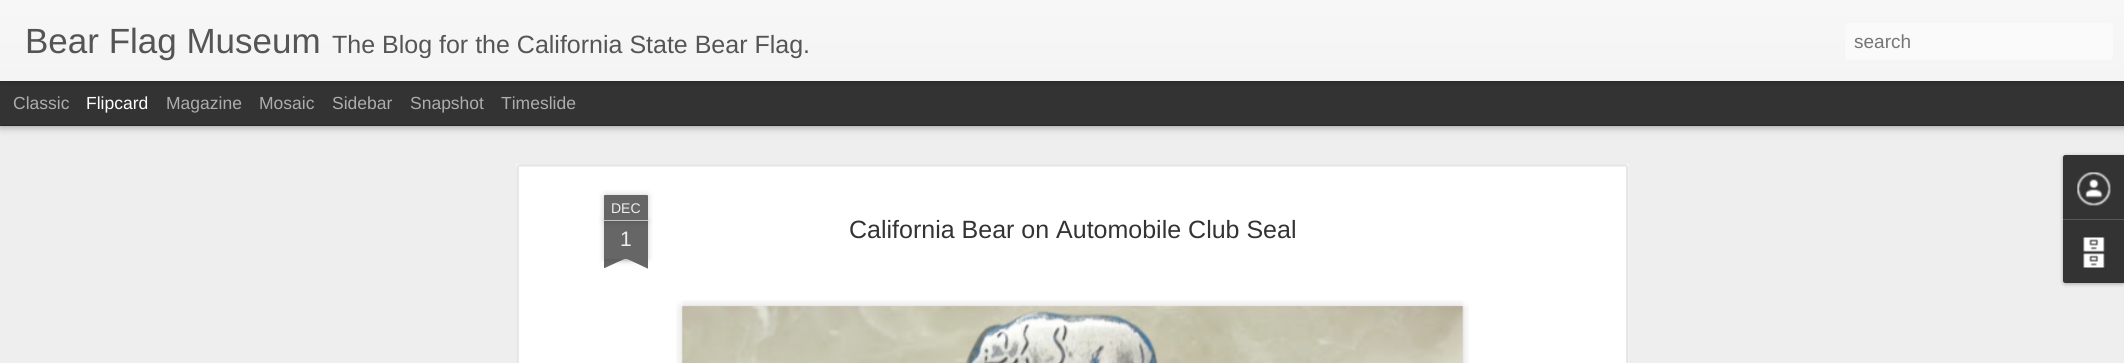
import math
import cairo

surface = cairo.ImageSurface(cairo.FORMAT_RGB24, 2124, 363)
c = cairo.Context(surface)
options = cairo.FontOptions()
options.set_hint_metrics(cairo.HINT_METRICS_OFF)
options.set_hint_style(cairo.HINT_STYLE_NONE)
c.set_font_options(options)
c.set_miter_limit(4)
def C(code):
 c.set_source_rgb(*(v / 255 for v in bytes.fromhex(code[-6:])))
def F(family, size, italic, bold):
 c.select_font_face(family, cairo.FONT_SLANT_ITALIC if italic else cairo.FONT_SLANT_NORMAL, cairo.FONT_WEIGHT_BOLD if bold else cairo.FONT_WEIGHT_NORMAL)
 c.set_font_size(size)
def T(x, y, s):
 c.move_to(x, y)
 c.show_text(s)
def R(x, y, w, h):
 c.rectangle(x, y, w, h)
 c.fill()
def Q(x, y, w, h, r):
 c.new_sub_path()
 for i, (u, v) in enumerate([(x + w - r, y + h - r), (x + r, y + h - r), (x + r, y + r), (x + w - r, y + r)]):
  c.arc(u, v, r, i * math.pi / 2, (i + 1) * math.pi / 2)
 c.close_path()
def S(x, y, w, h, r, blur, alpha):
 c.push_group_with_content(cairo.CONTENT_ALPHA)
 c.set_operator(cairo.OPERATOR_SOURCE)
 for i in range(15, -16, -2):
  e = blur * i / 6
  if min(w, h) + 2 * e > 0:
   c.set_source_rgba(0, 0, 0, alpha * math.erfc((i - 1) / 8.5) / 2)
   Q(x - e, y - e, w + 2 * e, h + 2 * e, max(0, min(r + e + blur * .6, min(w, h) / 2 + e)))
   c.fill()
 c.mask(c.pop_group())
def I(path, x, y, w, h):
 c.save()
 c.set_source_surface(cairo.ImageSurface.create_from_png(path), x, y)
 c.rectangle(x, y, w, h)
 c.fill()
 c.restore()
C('333333')
c.paint()
C('eeeeee')
R(0,126,2124,237)
C('000000')
S(0,81,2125,44,0,5,.5)
C('333333')
R(0,81,2124,44)
C('000000')
S(0,0,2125,81,0,3,.3)
gradient = cairo.LinearGradient(0,0,0,81)
gradient.add_color_stop_rgba(0,0.969,0.969,0.969,1)
gradient.add_color_stop_rgba(1,0.957,0.957,0.957,1)
c.set_source(gradient)
R(0,0,2124,81)
F('Liberation Sans',35,0,0)
C('555555')
T(25,53,'Bear Flag Museum')
F('Liberation Sans',25,0,0)
T(332,53,'The Blog for the California State Bear Flag.')
C('fafafa')
Q(1845,23,268,37,4)
c.fill()
F('Liberation Sans',19,0,0)
C('757575')
T(1854,48,'search')
F('Liberation Sans',17.5,0,0)
C('adadad')
T(13,109,'Classic')
C('ffffff')
T(86,109,'Flipcard')
C('adadad')
T(166,109,'Magazine')
T(259,109,'Mosaic')
T(332,109,'Sidebar')
T(410,109,'Snapshot')
T(501,109,'Timeslide')
C('ffffff')
R(516,164,1113,199)
I('1.png',516,164,1113,199)
C('000000')
S(604,221,44,38,0,3,.2)
C('666666')
R(604,221,44,38)
C('000000')
S(604,195,44,26,1,3,.2)
C('666666')
c.new_path()
c.move_to(605,195)
c.line_to(647,195)
c.curve_to(647.5,195,648,195.5,648,196)
c.line_to(648,221)
c.line_to(604,221)
c.line_to(604,196)
c.curve_to(604,195.5,604.5,195,605,195)
c.close_path()
c.fill()
C('c2c2c2')
R(604,220,44,1)
F('Liberation Sans',14,0,0)
C('eeeeee')
T(611,213,'DEC')
F('Liberation Sans',21,0,0)
T(620,246,'1')
c.save()
c.rectangle(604,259,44,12)
c.clip()
C('000000')
S(593,246,62,13,0,3,.2)
c.restore()
c.save()
c.rectangle(604,259,44,12)
c.clip()
C('666666')
c.new_path()
c.move_to(593,260)
c.line_to(649,234)
c.line_to(655,245)
c.line_to(598,271)
c.close_path()
c.fill()
c.restore()
c.save()
c.rectangle(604,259,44,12)
c.clip()
C('000000')
S(596,246,63,13,0,3,.2)
c.restore()
c.save()
c.rectangle(604,259,44,12)
c.clip()
C('666666')
c.new_path()
c.move_to(602,234)
c.line_to(658,260)
c.line_to(653,271)
c.line_to(597,245)
c.close_path()
c.fill()
c.restore()
F('Liberation Sans',25,0,0)
C('333333')
T(849,238,'California Bear on Automobile Club Seal')
I('2.png',676,300,793,63)
I('3.png',682,305,782,58)
C('000000')
S(2063,156,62,128,2.5,2,.3)
C('333333')
c.new_path()
c.move_to(2065.5,155)
c.line_to(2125,155)
c.line_to(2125,219)
c.line_to(2063,219)
c.line_to(2063,157.5)
c.curve_to(2063,156,2064,155,2065.5,155)
c.close_path()
c.fill()
I('4.png',2077,172,34,34)
c.new_path()
c.move_to(2063,219)
c.line_to(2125,219)
c.line_to(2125,283)
c.line_to(2065.5,283)
c.curve_to(2064,283,2063,282,2063,280.5)
c.close_path()
c.fill()
C('585858')
R(2063,219,61,1)
I('5.png',2083,237,22,31)
surface.write_to_png('o.png')
